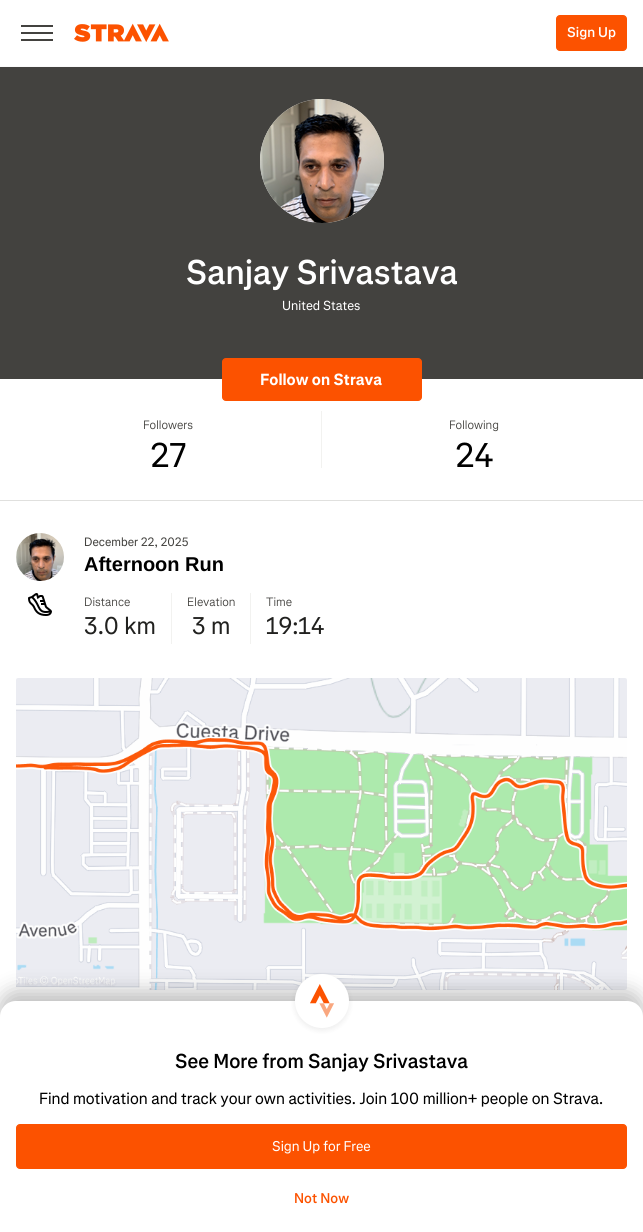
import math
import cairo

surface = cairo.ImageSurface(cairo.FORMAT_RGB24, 643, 1232)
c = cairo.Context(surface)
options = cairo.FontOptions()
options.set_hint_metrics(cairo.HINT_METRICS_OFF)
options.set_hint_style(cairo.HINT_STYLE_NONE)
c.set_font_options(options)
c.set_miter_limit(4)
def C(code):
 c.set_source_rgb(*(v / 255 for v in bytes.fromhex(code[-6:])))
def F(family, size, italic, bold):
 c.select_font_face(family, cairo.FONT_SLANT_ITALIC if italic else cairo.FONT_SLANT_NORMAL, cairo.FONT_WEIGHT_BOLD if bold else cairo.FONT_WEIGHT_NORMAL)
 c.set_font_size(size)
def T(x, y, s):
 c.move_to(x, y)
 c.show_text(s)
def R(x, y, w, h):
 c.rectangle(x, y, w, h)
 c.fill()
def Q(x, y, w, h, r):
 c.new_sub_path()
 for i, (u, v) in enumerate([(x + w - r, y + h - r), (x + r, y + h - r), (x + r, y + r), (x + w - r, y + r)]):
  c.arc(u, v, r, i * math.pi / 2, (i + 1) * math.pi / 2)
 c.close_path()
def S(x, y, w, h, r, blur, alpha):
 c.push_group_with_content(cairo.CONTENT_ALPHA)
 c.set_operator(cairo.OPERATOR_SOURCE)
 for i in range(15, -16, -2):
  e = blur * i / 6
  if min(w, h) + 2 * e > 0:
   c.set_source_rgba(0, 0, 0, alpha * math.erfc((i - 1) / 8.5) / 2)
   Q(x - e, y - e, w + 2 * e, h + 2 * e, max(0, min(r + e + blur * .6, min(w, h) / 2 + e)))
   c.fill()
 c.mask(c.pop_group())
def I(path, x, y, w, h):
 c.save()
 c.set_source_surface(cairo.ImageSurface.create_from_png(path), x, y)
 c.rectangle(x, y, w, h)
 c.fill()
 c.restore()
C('ffffff')
c.paint()
C('fafafa')
R(0,66,643,1)
C('43423f')
R(21,25,32,2)
R(21,32,32,2)
R(21,39,32,2)
I('1.png',74,23,95,19)
C('fc5200')
Q(556.5,15.5,70,35,3.5)
c.fill_preserve()
c.set_line_width(1)
c.stroke()
F('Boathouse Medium',14,0,0)
C('ffffff')
T(567,37,'Sign Up')
C('43423f')
R(0,67,643,312)
C('e0e0de')
c.new_path()
c.arc(322,161,62,0,2 * math.pi)
c.fill()
I('2.png',260,99,124,124)
F('Boathouse Medium',34,0,0)
C('ffffff')
T(186,284,'Sanjay Srivastava')
F('Boathouse',13,0,0)
T(282,310,'United States')
C('fc5200')
Q(222.5,358.5,199,42,3.5)
c.fill_preserve()
c.stroke()
F('Boathouse',16,0,1)
C('ffffff')
T(260,385,'Follow on Strava')
C('f2f2f0')
R(321,411,1,57)
F('Boathouse Light',12,0,0)
C('43423f')
T(143,429,'Followers')
F('Boathouse',34,0,0)
C('000000')
T(150,467,'27')
F('Boathouse Light',12,0,0)
C('43423f')
T(449,429,'Following')
F('Boathouse',34,0,0)
C('000000')
T(455,467,'24')
C('e0e0de')
R(0,500,643,1)
I('3.png',16,533,48,48)
F('Boathouse',12,0,0)
C('43423f')
T(84,546,'December 22, 2025')
F('Liberation Sans',20,0,1)
C('000000')
T(84,571,'Afternoon Run')
I('4.png',28,593,24,23)
C('f2f2f0')
R(171,593,1,51)
F('Boathouse Light',12,0,0)
C('43423f')
T(84,606,'Distance')
F('Boathouse',24,0,0)
C('21211f')
T(84,634,'3.0 km')
C('f2f2f0')
R(250,593,1,51)
F('Boathouse Light',12,0,0)
C('43423f')
T(187,606,'Elevation')
F('Boathouse',24,0,0)
C('21211f')
T(192,634,'3 m')
F('Boathouse Light',12,0,0)
C('43423f')
T(266,606,'Time')
F('Boathouse',24,0,0)
C('21211f')
T(266,634,'19:14')
I('5.png',16,678,611,312)
C('000000')
S(0,991,643,231,16,10,.25)
C('ffffff')
c.new_path()
c.move_to(16,1001)
c.line_to(627,1001)
c.curve_to(636,1001,643,1008,643,1017)
c.line_to(643,1232)
c.line_to(0,1232)
c.line_to(0,1017)
c.curve_to(0,1008,7,1001,16,1001)
c.close_path()
c.fill()
C('000000')
S(295,976,54,54,27,3,.08)
C('ffffff')
c.arc(322,1001,27,0,2 * math.pi)
c.fill()
I('6.png',310,984,24,34)
F('Boathouse Medium',20,0,0)
C('000000')
T(175,1068,'See More from Sanjay Srivastava')
F('Boathouse',16,0,0)
T(39,1104,'Find motivation and track your own activities. Join 100 million+ people on Strava.')
C('fc5200')
Q(16.5,1124.5,610,44,3.5)
c.fill_preserve()
c.stroke()
F('Boathouse',14,0,0)
C('ffffff')
T(272,1151,'Sign Up for Free')
F('Boathouse Medium',14,0,0)
C('fc5200')
T(294,1203,'Not Now')
surface.write_to_png('o.png')
